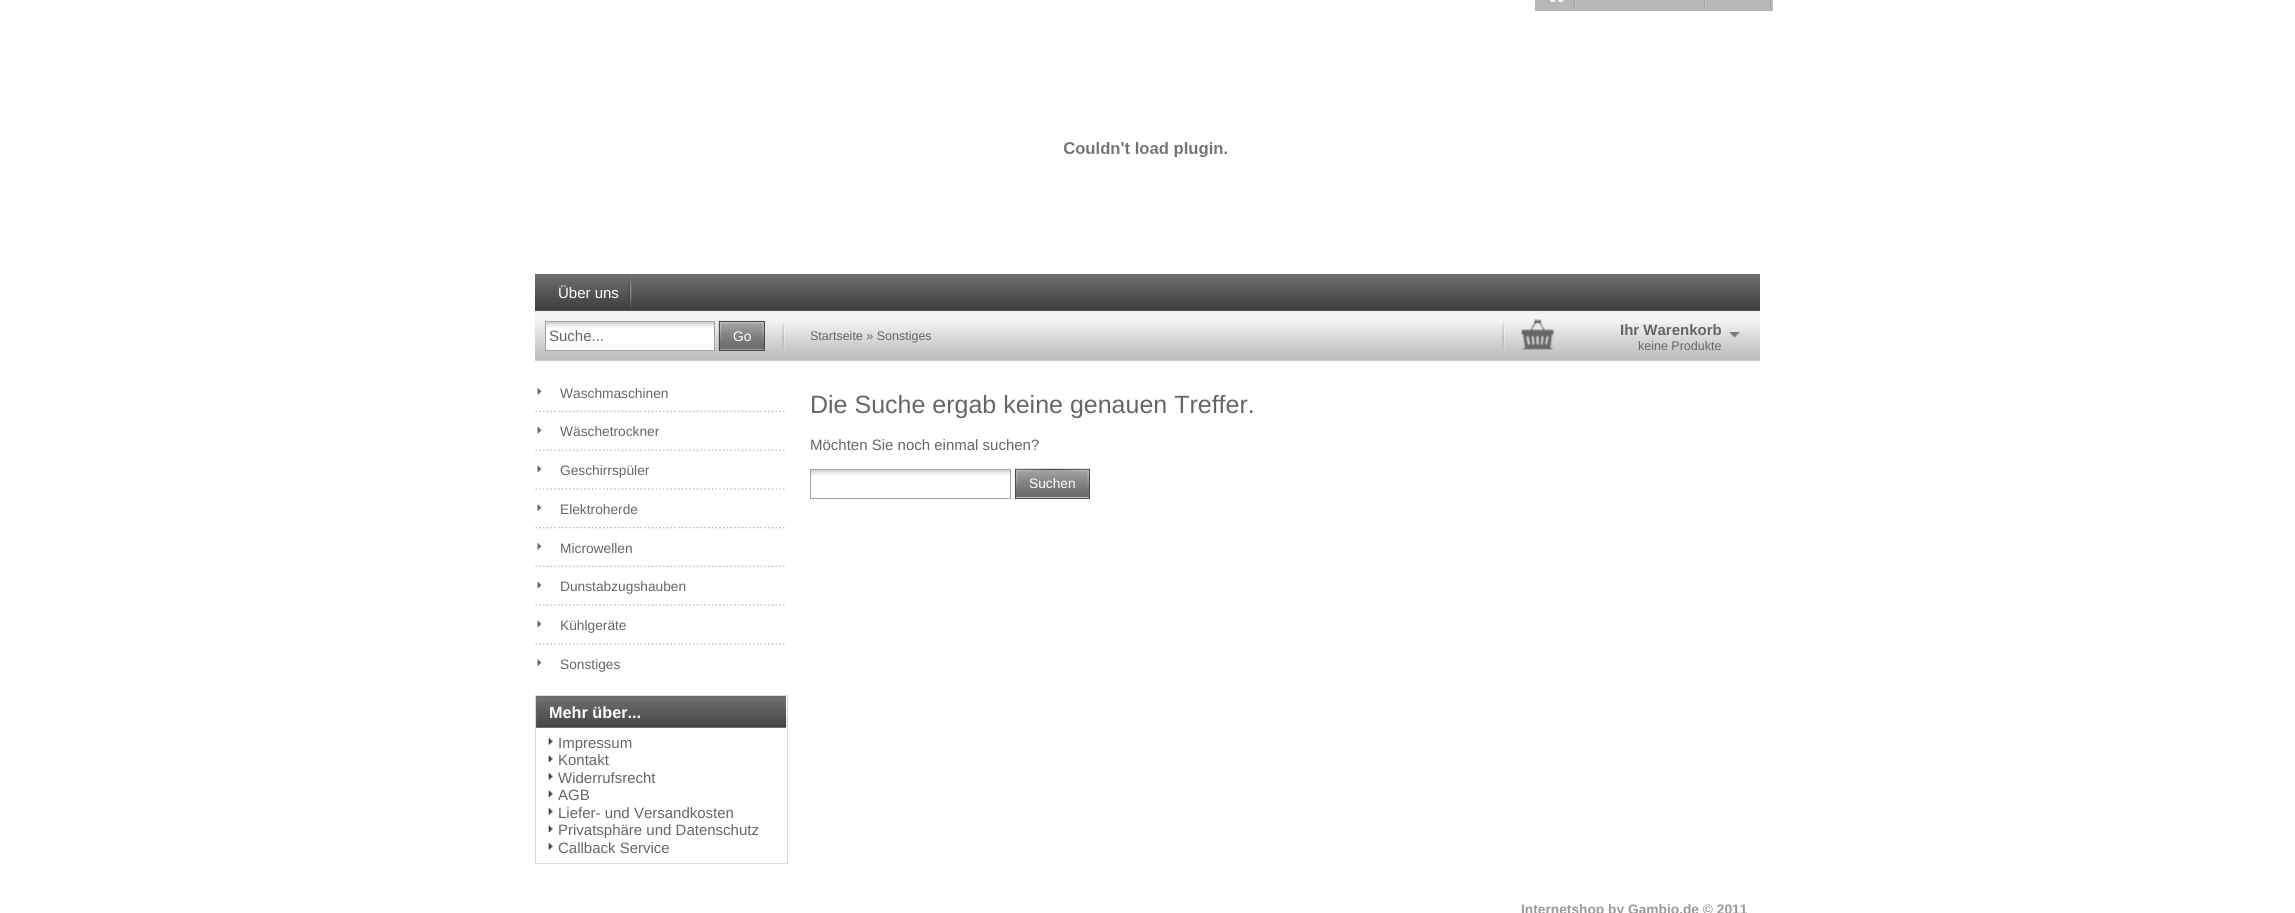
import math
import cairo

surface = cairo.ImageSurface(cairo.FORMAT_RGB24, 2295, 913)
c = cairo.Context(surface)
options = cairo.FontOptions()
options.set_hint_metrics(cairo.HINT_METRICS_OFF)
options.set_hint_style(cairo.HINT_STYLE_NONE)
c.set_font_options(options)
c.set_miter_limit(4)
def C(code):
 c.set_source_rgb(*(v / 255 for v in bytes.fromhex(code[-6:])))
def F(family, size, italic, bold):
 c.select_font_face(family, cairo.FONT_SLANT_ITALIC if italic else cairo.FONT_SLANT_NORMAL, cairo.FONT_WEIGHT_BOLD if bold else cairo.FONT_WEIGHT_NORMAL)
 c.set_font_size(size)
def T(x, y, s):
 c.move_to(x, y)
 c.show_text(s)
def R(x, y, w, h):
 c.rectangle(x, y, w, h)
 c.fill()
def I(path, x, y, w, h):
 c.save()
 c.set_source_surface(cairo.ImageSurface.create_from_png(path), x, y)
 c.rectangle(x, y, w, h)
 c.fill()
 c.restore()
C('ffffff')
c.paint()
C('b7b7b7')
R(1535,0,238,11)
I('1.png',1573,0,3,10)
I('2.png',1549,0,15,2)
I('1.png',1703,0,3,10)
I('3.png',1770,0,3,10)
I('4.png',1064,142,163,15)
C('6d6d6d')
R(535,274,1225,37)
I('5.png',535,278,1225,33)
I('6.png',628,275,4,35)
F('Liberation Sans',15,0,0)
C('ffffff')
T(558,298,'Über uns')
C('f3f3f3')
R(535,311,1225,50)
I('7.png',535,323,1225,38)
I('8.png',782,321,3,30)
C('ffffff')
R(546,322,168,28)
I('9.png',546,322,168,6)
c.rectangle(545.5,321.5,169,29)
C('a3a3a3')
c.set_line_width(1)
c.stroke()
C('666666')
T(549,341,'Suche...')
C('c8c8c8')
R(720,322,44,26)
I('10.png',718,320,47,30)
c.rectangle(719.5,321.5,45,29)
C('484848')
c.stroke()
I('11.png',720,322,28,20)
I('12.png',737,322,27,19)
F('Liberation Sans',13.75,0,0)
C('ffffff')
T(733,341,'Go')
F('Liberation Sans',12.5,0,0)
C('666666')
T(810,340,'Startseite » Sonstiges')
I('13.png',1502,319,3,32)
I('14.png',1521,319,33,31)
F('Liberation Sans',15,0,1)
T(1620,335,'Ihr Warenkorb')
F('Liberation Sans',12.5,0,0)
T(1638,350,'keine Produkte')
I('15.png',1728,332,12,7)
I('16.png',535,410,250,2)
I('17.png',537,388,5,7)
F('Liberation Sans',13.75,0,0)
T(560,398,'Waschmaschinen')
I('18.png',535,449,250,2)
I('19.png',537,426,5,8)
T(560,436,'Wäschetrockner')
I('20.png',535,488,250,2)
I('21.png',537,465,5,7)
T(560,475,'Geschirrspüler')
I('22.png',535,527,250,2)
I('23.png',537,504,5,7)
T(560,514,'Elektroherde')
I('16.png',535,565,250,2)
I('17.png',537,543,5,7)
T(560,553,'Microwellen')
I('18.png',535,604,250,2)
I('19.png',537,581,5,8)
T(560,591,'Dunstabzugshauben')
I('20.png',535,643,250,2)
I('21.png',537,620,5,7)
T(560,630,'Kühlgeräte')
I('23.png',537,659,5,7)
T(560,669,'Sonstiges')
c.rectangle(535.5,695.5,252,168)
C('dadada')
c.stroke()
C('6d6d6d')
R(536,696,250,32)
I('24.png',536,701,251,26)
F('Liberation Sans',16.25,0,1)
C('ffffff')
T(549,718,'Mehr über...')
I('25.png',548,738,5,7)
F('Liberation Sans',15,0,0)
C('666666')
T(558,748,'Impressum')
I('26.png',548,755,5,7)
T(558,765,'Kontakt')
I('25.png',548,773,5,7)
T(558,783,'Widerrufsrecht')
I('26.png',548,790,5,7)
T(558,800,'AGB')
I('25.png',548,808,5,7)
T(558,818,'Liefer- und Versandkosten')
I('26.png',548,825,5,7)
T(558,835,'Privatsphäre und Datenschutz')
I('25.png',548,843,5,7)
T(558,853,'Callback Service')
F('Liberation Sans',25,0,0)
T(810,413,'Die Suche ergab keine genauen Treffer.')
F('Liberation Sans',15,0,0)
T(810,450,'Möchten Sie noch einmal suchen?')
I('27.png',811,469,201,7)
c.rectangle(810.5,469.5,200,29)
C('a3a3a3')
c.stroke()
C('c8c8c8')
R(1016,470,73,28)
I('28.png',1015,468,75,29)
c.rectangle(1015.5,469.5,74,29)
C('484848')
c.stroke()
I('29.png',1016,469,28,19)
I('30.png',1061,469,28,19)
F('Liberation Sans',13.75,0,0)
C('ffffff')
T(1029,488,'Suchen')
F('Liberation Sans',13.75,0,1)
C('999999')
T(1521,914,'Internetshop by Gambio.de © 2011')
surface.write_to_png('o.png')
